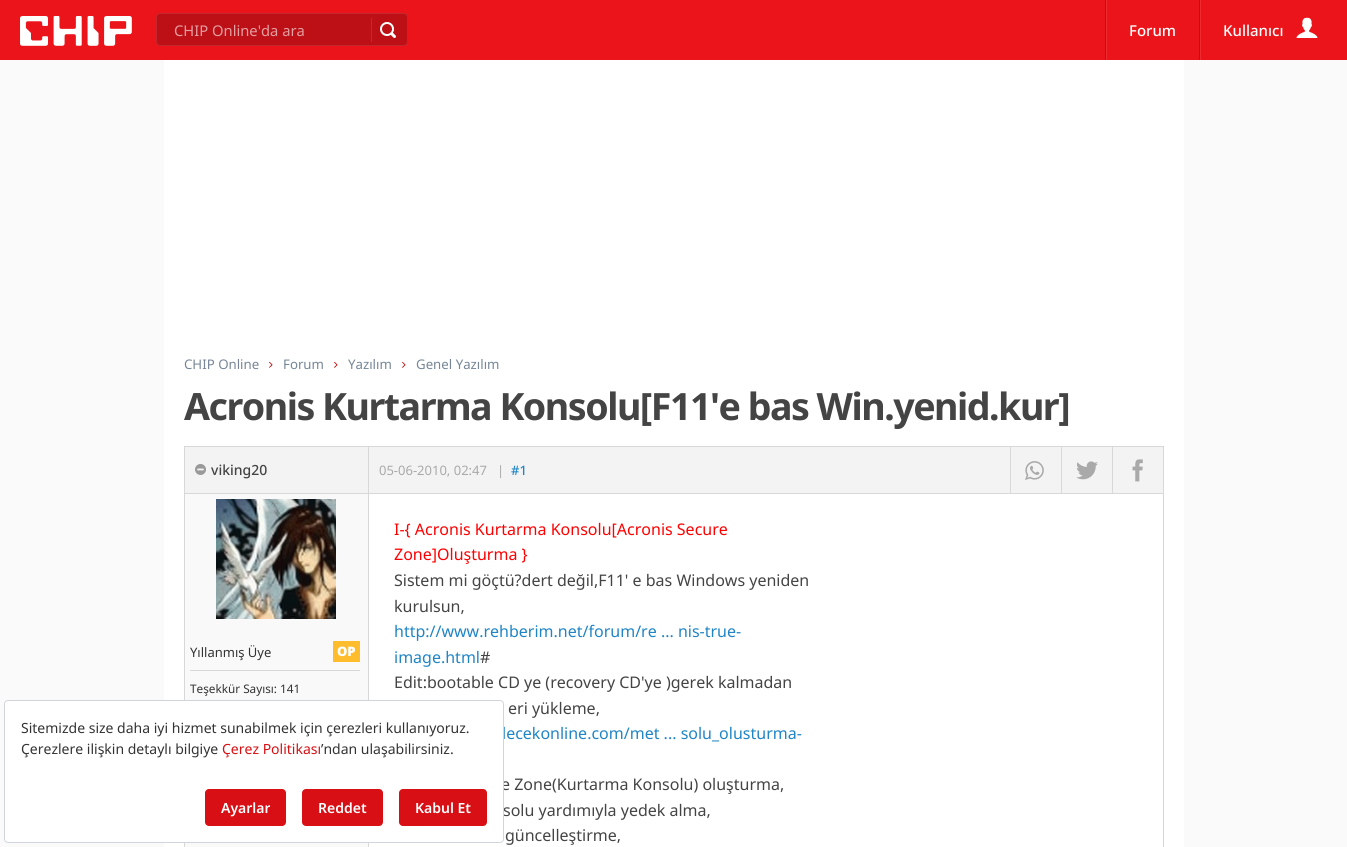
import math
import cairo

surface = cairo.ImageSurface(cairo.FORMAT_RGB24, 1347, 847)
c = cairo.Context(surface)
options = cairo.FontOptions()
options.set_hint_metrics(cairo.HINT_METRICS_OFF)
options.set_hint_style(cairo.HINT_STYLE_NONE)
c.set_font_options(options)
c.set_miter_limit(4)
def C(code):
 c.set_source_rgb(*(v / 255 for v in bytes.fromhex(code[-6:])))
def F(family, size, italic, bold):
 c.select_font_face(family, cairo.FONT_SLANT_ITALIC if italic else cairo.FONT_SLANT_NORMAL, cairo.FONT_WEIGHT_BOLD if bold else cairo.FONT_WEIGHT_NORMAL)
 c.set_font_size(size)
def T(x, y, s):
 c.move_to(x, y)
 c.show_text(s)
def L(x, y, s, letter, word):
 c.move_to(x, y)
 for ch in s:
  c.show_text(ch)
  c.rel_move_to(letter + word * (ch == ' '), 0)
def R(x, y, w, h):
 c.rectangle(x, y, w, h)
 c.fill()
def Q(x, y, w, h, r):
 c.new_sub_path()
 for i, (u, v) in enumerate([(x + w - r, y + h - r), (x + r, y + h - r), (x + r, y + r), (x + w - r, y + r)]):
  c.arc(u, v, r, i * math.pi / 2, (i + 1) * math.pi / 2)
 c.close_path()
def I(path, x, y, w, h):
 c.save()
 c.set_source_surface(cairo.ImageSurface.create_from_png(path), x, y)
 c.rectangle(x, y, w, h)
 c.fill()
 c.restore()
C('fafafa')
c.paint()
C('eb141b')
R(0,0,1347,60)
I('1.png',20,16,112,30)
C('bc1016')
Q(156,13,252,33,4)
c.fill()
Q(156.5,13.5,251,32,3.5)
c.set_source_rgba(1,1,1,0.1)
c.set_line_width(1)
c.stroke()
F('Noto Sans',14.75,0,0)
C('e49fa2')
T(174,36,'CHIP Online\'da ara')
C('c3282d')
R(371,18,1,24)
I('2.png',380,22,16,16)
C('ed2c32')
R(1106,0,1,60)
C('bc1016')
R(1105,0,1,60)
F('Noto Sans Medium',15,0,0)
C('ffffff')
T(1129,36,'Forum')
C('ed2c32')
R(1200,0,1,60)
C('bc1016')
R(1199,0,1,60)
C('ffffff')
T(1223,36,'Kullanıcı')
I('3.png',1296,17,22,21)
R(164,60,1020,787)
F('Noto Sans',13.25,0,0)
C('768696')
T(184,369,'CHIP Online')
I('4.png',269,361,4,7)
T(283,369,'Forum')
I('4.png',334,361,4,7)
T(348,369,'Yazılım')
I('4.png',402,361,4,7)
T(416,369,'Genel Yazılım')
F('Noto Sans',37.6,0,1)
C('444444')
L(184,420,'Acronis Kurtarma Konsolu[F11\'e bas Win.yenid.kur]',-1.5,0)
C('f3f3f3')
R(185,447,978,46)
C('d8d8d8')
R(184,446,980,1)
R(184,493,980,1)
R(368,447,1,46)
R(184,447,1,46)
I('5.png',195,464,11,11)
F('Noto Sans Medium',14,0,0)
C('444444')
T(211,475,'viking20')
C('d8d8d8')
R(1163,447,1,46)
F('Noto Sans',13,0,0)
C('a9a9a9')
T(379,475,'05-06-2010, 02:47')
T(497,475,'|')
F('Noto Sans Medium',13,0,0)
C('1f85c5')
T(511,475,'#1')
C('d8d8d8')
R(1010,447,1,46)
I('6.png',1025,461,19,19)
R(1061,447,1,46)
I('7.png',1076,461,22,19)
R(1112,447,1,46)
I('8.png',1132,459,11,23)
C('f9f9f9')
R(185,494,183,353)
C('d8d8d8')
R(184,494,1,353)
I('9.png',216,499,120,120)
R(190,670,170,1)
F('Noto Sans',13,0,0)
C('333333')
T(190,657,'Yıllanmış Üye')
C('ffbd2d')
R(333,641,27,21)
F('Noto Sans Black',13,0,0)
C('ffffff')
T(337,656,'OP')
F('Noto Sans',11.75,0,0)
C('333333')
T(190,693,'Teşekkür Sayısı: 141')
C('d8d8d8')
R(1163,494,1,353)
R(368,494,1,353)
F('Noto Sans',16,0,0)
C('ff0000')
T(394,535,'I-{ Acronis Kurtarma Konsolu[Acronis Secure')
T(394,560,'Zone]Oluşturma }')
C('444444')
T(394,586,'Sistem mi göçtü?dert değil,F11\' e bas Windows yeniden')
T(394,612,'kurulsun,')
C('1f85c5')
T(394,637,'http://www.rehberim.net/forum/re ... nis-true-')
T(394,663,'image.html')
C('444444')
T(480,663,'#')
T(394,688,'Edit:bootable CD ye (recovery CD\'ye )gerek kalmadan')
T(508,714,'eri yükleme,')
C('1f85c5')
T(502,739,'lecekonline.com/met ... solu_olusturma-')
C('444444')
T(501,790,'e Zone(Kurtarma Konsolu) oluşturma,')
T(503,816,'solu yardımıyla yedek alma,')
T(505,841,'güncelleştirme,')
C('ffffff')
Q(4.5,700.5,499,142,3.5)
c.fill_preserve()
C('d1d5db')
c.stroke()
F('Noto Sans',14,0,0)
C('333333')
T(21,733,'Sitemizde size daha iyi hizmet sunabilmek için çerezleri kullanıyoruz.')
T(21,754,'Çerezlere ilişkin detaylı bilgiye')
C('d70f12')
T(222,754,'Çerez Politikası')
C('333333')
T(321,754,'’ndan ulaşabilirsiniz.')
C('d80f14')
Q(205,789,81,37,4)
c.fill()
F('Noto Sans SemiBold',14,0,0)
C('ffffff')
T(221,813,'Ayarlar')
C('d80f14')
Q(302,789,81,37,4)
c.fill()
C('ffffff')
T(318,813,'Reddet')
C('d80f14')
Q(399,789,88,37,4)
c.fill()
C('ffffff')
T(415,813,'Kabul Et')
surface.write_to_png('o.png')
